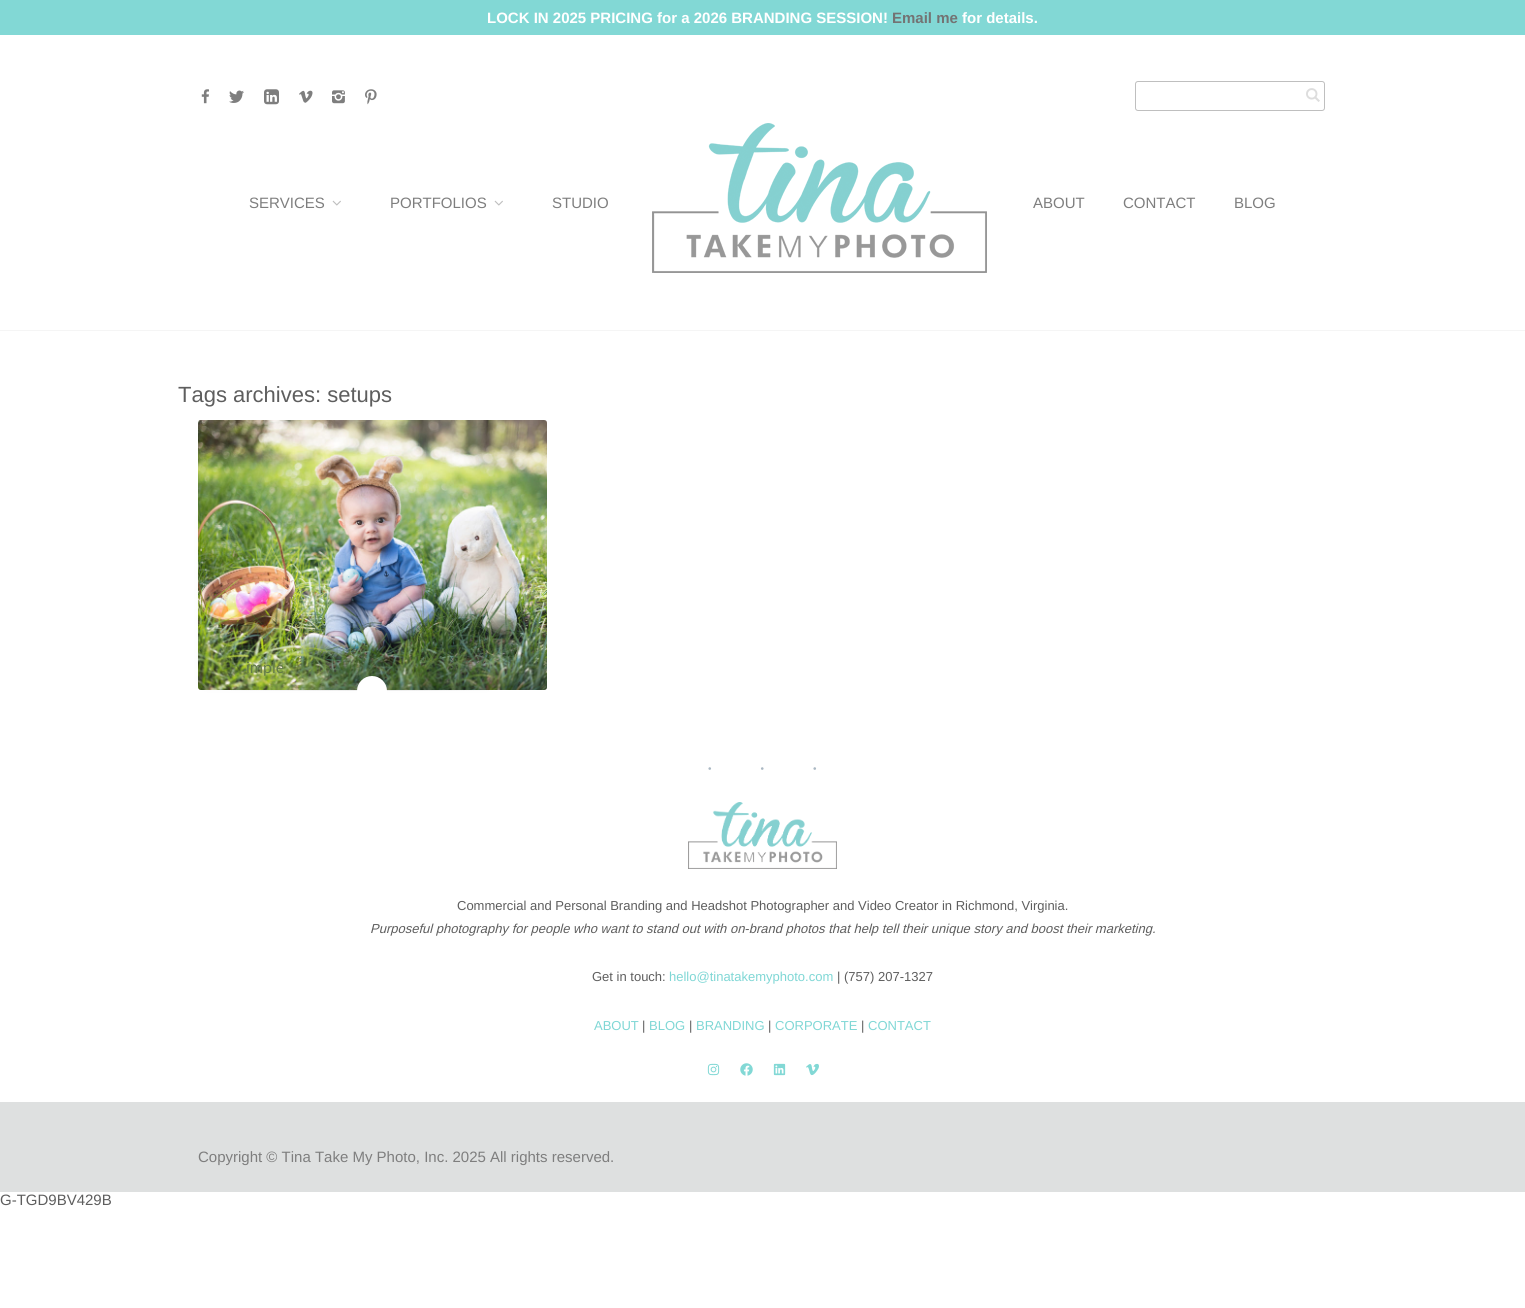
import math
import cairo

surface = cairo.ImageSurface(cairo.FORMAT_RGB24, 1525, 1308)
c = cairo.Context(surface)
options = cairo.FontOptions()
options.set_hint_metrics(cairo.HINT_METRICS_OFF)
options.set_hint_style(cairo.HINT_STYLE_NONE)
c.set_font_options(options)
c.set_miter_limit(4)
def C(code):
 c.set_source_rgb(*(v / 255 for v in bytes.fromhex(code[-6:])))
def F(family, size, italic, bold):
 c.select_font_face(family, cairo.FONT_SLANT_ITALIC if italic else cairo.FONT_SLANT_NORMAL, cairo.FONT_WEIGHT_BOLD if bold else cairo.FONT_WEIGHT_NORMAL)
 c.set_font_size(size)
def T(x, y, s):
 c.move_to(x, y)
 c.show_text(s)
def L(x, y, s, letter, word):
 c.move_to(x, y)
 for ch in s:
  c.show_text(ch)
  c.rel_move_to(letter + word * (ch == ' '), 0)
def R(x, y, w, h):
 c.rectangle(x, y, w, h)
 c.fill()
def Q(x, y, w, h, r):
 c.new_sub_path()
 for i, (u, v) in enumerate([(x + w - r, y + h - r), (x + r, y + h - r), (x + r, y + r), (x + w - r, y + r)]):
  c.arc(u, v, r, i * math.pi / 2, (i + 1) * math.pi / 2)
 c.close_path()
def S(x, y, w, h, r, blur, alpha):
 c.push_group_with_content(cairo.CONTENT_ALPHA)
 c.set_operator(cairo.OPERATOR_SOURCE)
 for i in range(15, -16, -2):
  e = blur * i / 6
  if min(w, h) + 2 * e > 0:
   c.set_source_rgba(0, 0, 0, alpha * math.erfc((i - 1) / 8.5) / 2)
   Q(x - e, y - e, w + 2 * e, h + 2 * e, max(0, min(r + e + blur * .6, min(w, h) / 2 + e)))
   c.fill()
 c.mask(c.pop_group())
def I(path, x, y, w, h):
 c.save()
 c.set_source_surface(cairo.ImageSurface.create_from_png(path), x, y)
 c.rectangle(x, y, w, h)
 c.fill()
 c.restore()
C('ffffff')
c.paint()
C('f5f5f5')
R(0,330,1525,1)
C('82d8d5')
R(0,0,1525,35)
F('Arimo',15,0,1)
C('ffffff')
T(487,23,'LOCK IN 2025 PRICING for a 2026 BRANDING SESSION!')
C('737373')
T(892,23,'Email me')
C('ffffff')
T(962,23,'for details.')
I('1.png',201,89,8,15)
I('2.png',229,90,15,13)
I('3.png',264,89,15,16)
I('4.png',299,90,14,13)
I('5.png',332,90,13,14)
I('6.png',365,89,12,16)
I('7.png',1306,88,14,14)
Q(1135.5,81.5,189,29,2.5)
C('bfbfbf')
c.set_line_width(1)
c.stroke()
F('Arimo',15,0,0)
C('7e7e7e')
T(249,208,'SERVICES')
I('8.png',332,200,9,6)
T(390,208,'PORTFOLIOS')
I('8.png',494,200,9,6)
T(552,208,'STUDIO')
I('9.png',652,123,335,150)
T(1033,208,'ABOUT')
T(1123,208,'CONTACT')
T(1234,208,'BLOG')
F('Liberation Sans',22,0,0)
C('5e5e5e')
T(178,402,'Tags archives: setups')
C('777777')
S(207,516,280,164,0,5,1)
I('10.png',198,420,349,270)
F('Lato',16,0,0)
C('637b48')
T(246,673,'imple')
gradient = cairo.LinearGradient(213,691,532,691)
gradient.add_color_stop_rgba(0,0.922,0.922,0.922,0)
gradient.add_color_stop_rgba(.3,0.922,0.922,0.922,.6)
gradient.add_color_stop_rgba(.5,0.922,0.922,0.922,1)
gradient.add_color_stop_rgba(.7,0.922,0.922,0.922,.6)
gradient.add_color_stop_rgba(.99,1,1,1,.02)
gradient.add_color_stop_rgba(1,1,1,1,0)
c.set_source(gradient)
R(231,690,258,1)
C('ffffff')
c.new_path()
c.arc(372,691,14,0,2 * math.pi)
c.fill_preserve()
c.set_line_width(2)
c.stroke()
F('Liberation Serif',22.5,0,0)
C('abb8c3')
L(706,776,'···',45,0)
I('11.png',688,802,149,67)
F('Arimo',13,0,0)
C('5e5e5e')
T(457,910,'Commercial and Personal Branding and Headshot Photographer and Video Creator in Richmond, Virginia.')
F('Arimo',13,1,0)
T(370,933,'Purposeful photography for people who want to stand out with on-brand photos that help tell their unique story and boost their marketing.')
F('Arimo',13,0,0)
T(592,981,'Get in touch:')
C('7fd7d5')
T(669,981,'hello@tinatakemyphoto.com')
C('5e5e5e')
T(837,981,'| (757) 207-1327')
C('7fd7d5')
T(594,1030,'ABOUT')
C('5e5e5e')
T(642,1030,'|')
C('7fd7d5')
T(649,1030,'BLOG')
C('5e5e5e')
T(689,1030,'|')
C('7fd7d5')
T(696,1030,'BRANDING')
C('5e5e5e')
T(768,1030,'|')
C('7fd7d5')
T(775,1030,'CORPORATE')
C('5e5e5e')
T(861,1030,'|')
C('7fd7d5')
T(868,1030,'CONTACT')
I('12.png',707,1063,13,13)
I('13.png',740,1063,13,13)
I('14.png',773,1063,13,13)
I('15.png',806,1063,13,13)
C('dee0e0')
R(0,1102,1525,90)
F('Arimo',15,0,0)
C('7e7e7e')
T(198,1162,'Copyright © Tina Take My Photo, Inc. 2025 All rights reserved.')
C('5e5e5e')
T(0,1205,'G-TGD9BV429B')
surface.write_to_png('o.png')
